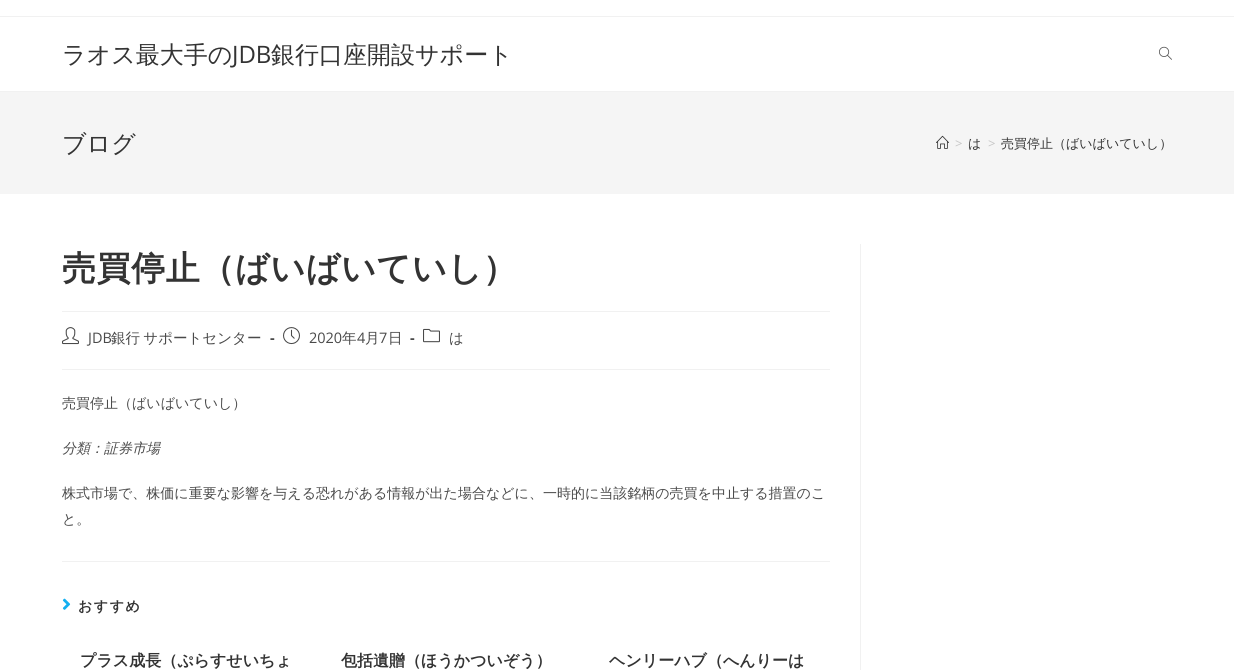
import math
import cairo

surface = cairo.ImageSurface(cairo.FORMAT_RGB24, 1234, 670)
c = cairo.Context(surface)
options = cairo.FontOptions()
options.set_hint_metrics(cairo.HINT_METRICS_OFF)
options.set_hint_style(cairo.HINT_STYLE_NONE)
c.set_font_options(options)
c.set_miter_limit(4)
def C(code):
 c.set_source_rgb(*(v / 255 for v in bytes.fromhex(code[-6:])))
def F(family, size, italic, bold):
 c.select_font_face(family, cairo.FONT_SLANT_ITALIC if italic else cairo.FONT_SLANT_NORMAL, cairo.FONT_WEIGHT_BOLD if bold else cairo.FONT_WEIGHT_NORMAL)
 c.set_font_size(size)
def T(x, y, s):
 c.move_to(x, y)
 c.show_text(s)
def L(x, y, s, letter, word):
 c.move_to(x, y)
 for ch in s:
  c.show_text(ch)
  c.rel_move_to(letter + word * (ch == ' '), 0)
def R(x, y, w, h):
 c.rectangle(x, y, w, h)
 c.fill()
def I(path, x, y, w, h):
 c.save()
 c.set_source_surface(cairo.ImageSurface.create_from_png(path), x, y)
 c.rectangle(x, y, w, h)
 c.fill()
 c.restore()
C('ffffff')
c.paint()
C('f1f1f1')
R(0,16,1234,1)
R(0,91,1234,1)
F('WenQuanYi Zen Hei Medium',24,0,0)
C('333333')
T(62,63,'ラオス最大手の')
F('Open Sans',24,0,0)
T(232,63,'JDB')
F('WenQuanYi Zen Hei Medium',24,0,0)
T(271,63,'銀行口座開設サポート')
I('1.png',1159,46,13,14)
C('f5f5f5')
R(0,92,1234,102)
C('333333')
T(62,152,'ブログ')
I('2.png',936,135,13,14)
F('Open Sans',13,0,0)
C('c6c6c6')
T(955,148,'>')
F('WenQuanYi Zen Hei Medium',13,0,0)
C('333333')
T(968,148,'は')
F('Open Sans',13,0,0)
C('c6c6c6')
T(988,148,'>')
F('WenQuanYi Zen Hei Medium',13,0,0)
C('333333')
T(1001,148,'売買停止（ばいばいていし）')
C('f1f1f1')
R(860,244,1,426)
R(62,311,768,1)
F('WenQuanYi Zen Hei',34,0,1)
C('333333')
L(62,280,'売買停止（ばいばいていし）',.6,0)
C('f1f1f1')
R(62,369,768,1)
I('3.png',62,327,17,18)
F('Open Sans',14.5,0,0)
C('4a4a4a')
T(88,343,'JDB')
F('WenQuanYi Zen Hei Medium',14.5,0,0)
L(111,343,'銀行 サポートセンター',0,-1)
F('Open Sans',14.5,0,1)
T(270,343,'-')
I('4.png',283,327,17,18)
F('Open Sans',14.5,0,0)
T(309,343,'2020')
F('WenQuanYi Zen Hei Medium',14.5,0,0)
T(342,343,'年')
F('Open Sans',14.5,0,0)
T(357,343,'4')
F('WenQuanYi Zen Hei Medium',14.5,0,0)
T(365,343,'月')
F('Open Sans',14.5,0,0)
T(379,343,'7')
F('WenQuanYi Zen Hei Medium',14.5,0,0)
T(388,343,'日')
F('Open Sans',14.5,0,1)
T(410,343,'-')
I('5.png',423,328,17,15)
F('WenQuanYi Zen Hei Medium',14.5,0,0)
T(449,343,'は')
F('WenQuanYi Zen Hei Medium',14,0,0)
T(62,408,'売買停止（ばいばいていし）')
F('WenQuanYi Zen Hei Medium',14,1,0)
T(62,453,'分類：証券市場')
F('WenQuanYi Zen Hei Medium',14,0,0)
T(62,498,'株式市場で、株価に重要な影響を与える恐れがある情報が出た場合などに、一時的に当該銘柄の売買を中止する措置のこ')
T(62,524,'と。')
C('f1f1f1')
R(62,561,768,1)
I('6.png',62,598,9,12)
F('WenQuanYi Zen Hei',14,0,1)
C('333333')
L(78,611,'おすすめ',1.5,0)
F('WenQuanYi Zen Hei',16,0,1)
T(80,666,'プラス成長（ぷらすせいちょ')
T(341,666,'包括遺贈（ほうかついぞう）')
T(609,666,'ヘンリーハブ（へんりーは')
surface.write_to_png('o.png')
